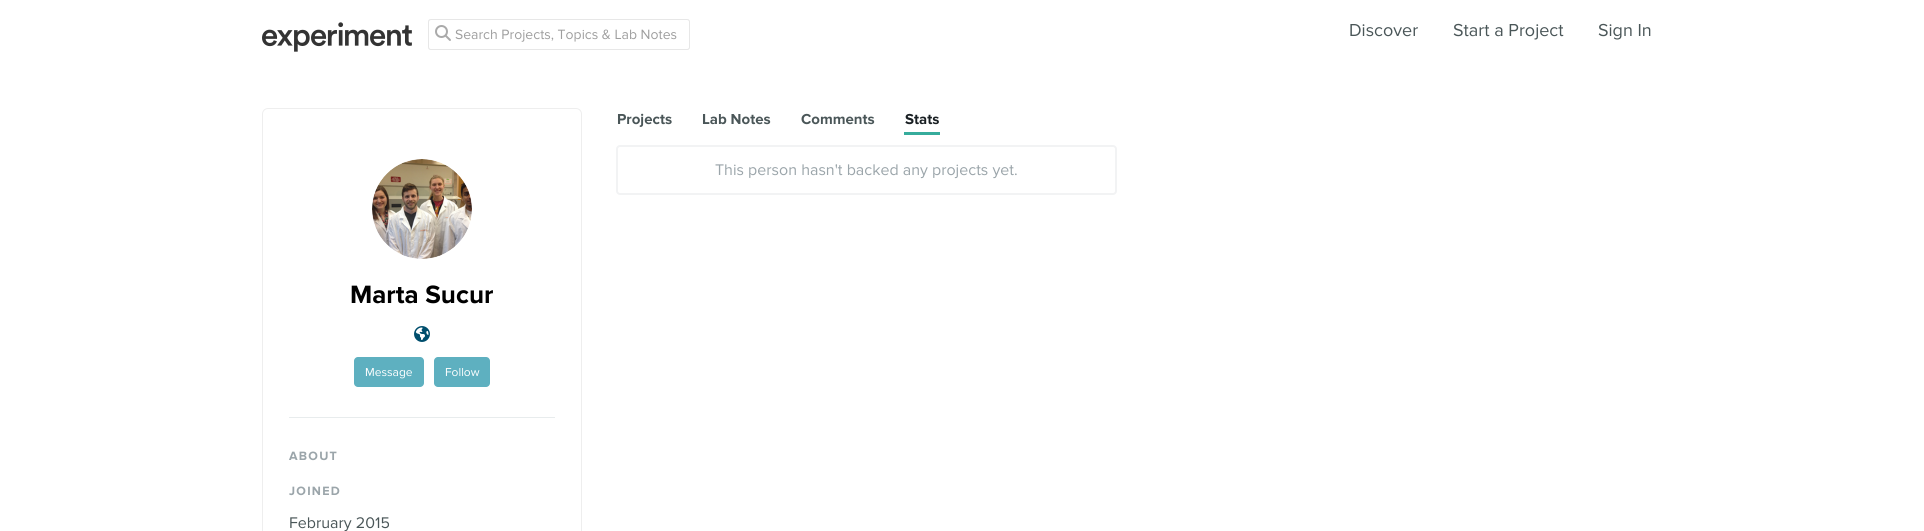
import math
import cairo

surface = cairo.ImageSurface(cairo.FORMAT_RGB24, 1924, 531)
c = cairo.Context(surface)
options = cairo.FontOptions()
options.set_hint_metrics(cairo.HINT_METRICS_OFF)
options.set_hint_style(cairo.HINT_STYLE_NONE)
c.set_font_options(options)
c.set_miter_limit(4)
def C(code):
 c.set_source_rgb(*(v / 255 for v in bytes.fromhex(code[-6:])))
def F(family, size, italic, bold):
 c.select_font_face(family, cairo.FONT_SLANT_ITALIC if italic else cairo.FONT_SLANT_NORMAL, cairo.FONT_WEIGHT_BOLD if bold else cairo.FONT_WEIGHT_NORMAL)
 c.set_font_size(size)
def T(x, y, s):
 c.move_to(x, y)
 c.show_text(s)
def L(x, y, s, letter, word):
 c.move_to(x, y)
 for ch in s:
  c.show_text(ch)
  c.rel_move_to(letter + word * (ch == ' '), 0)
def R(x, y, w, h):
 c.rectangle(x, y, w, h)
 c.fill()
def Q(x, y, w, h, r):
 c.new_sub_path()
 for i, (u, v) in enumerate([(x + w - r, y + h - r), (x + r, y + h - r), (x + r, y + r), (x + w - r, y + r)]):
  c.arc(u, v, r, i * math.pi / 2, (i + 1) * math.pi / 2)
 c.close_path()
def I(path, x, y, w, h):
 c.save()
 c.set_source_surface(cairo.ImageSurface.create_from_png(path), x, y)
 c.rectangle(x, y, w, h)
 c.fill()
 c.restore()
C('ffffff')
c.paint()
I('1.png',262,22,150,30)
Q(428.5,19.5,261,30,2.5)
C('e7e7e7')
c.set_line_width(1)
c.stroke()
C('ffffff')
Q(428,19,262,31,3)
c.fill()
Q(428.5,19.5,261,30,2.5)
c.set_source_rgba(0.867,0.867,0.867,0.7)
c.stroke()
I('2.png',435,25,16,16)
F('Proxima Nova',14,0,0)
C('9e9e9e')
T(455,39,'Search Projects, Topics & Lab Notes')
F('Proxima Nova',18,0,0)
C('4a5658')
T(1349,36,'Discover')
T(1453,36,'Start a Project')
T(1598,36,'Sign In')
F('Proxima Nova',15,0,1)
T(617,124,'Projects')
T(702,124,'Lab Notes')
T(801,124,'Comments')
C('36ac9c')
R(904,132,36,3)
C('1a2024')
T(905,124,'Stats')
Q(617,146,499,48,3)
C('f2f3f4')
c.set_line_width(2)
c.stroke()
F('Proxima Nova',16,0,0)
C('9ba5aa')
T(715,175,'This person hasn\'t backed any projects yet.')
Q(262.5,108.5,319,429,5.5)
C('eeeeee')
c.set_line_width(1)
c.stroke()
I('3.png',372,159,100,100)
F('Proxima Nova',26,0,1)
C('000000')
T(350,303,'Marta Sucur')
I('4.png',414,326,16,16)
C('5eb0c0')
Q(354,357,70,30,4)
c.fill()
F('Proxima Nova',12,0,0)
C('ffffff')
T(365,376,'Message')
C('5eb0c0')
Q(434,357,56,30,4)
c.fill()
C('ffffff')
T(445,376,'Follow')
C('e8eced')
R(289,417,266,1)
F('Proxima Nova',12.5,0,1)
C('9ba5aa')
L(289,460,'ABOUT',1.25,0)
L(289,495,'JOINED',1.25,0)
F('Proxima Nova',16,0,0)
C('4a5658')
T(289,528,'February 2015')
surface.write_to_png('o.png')
